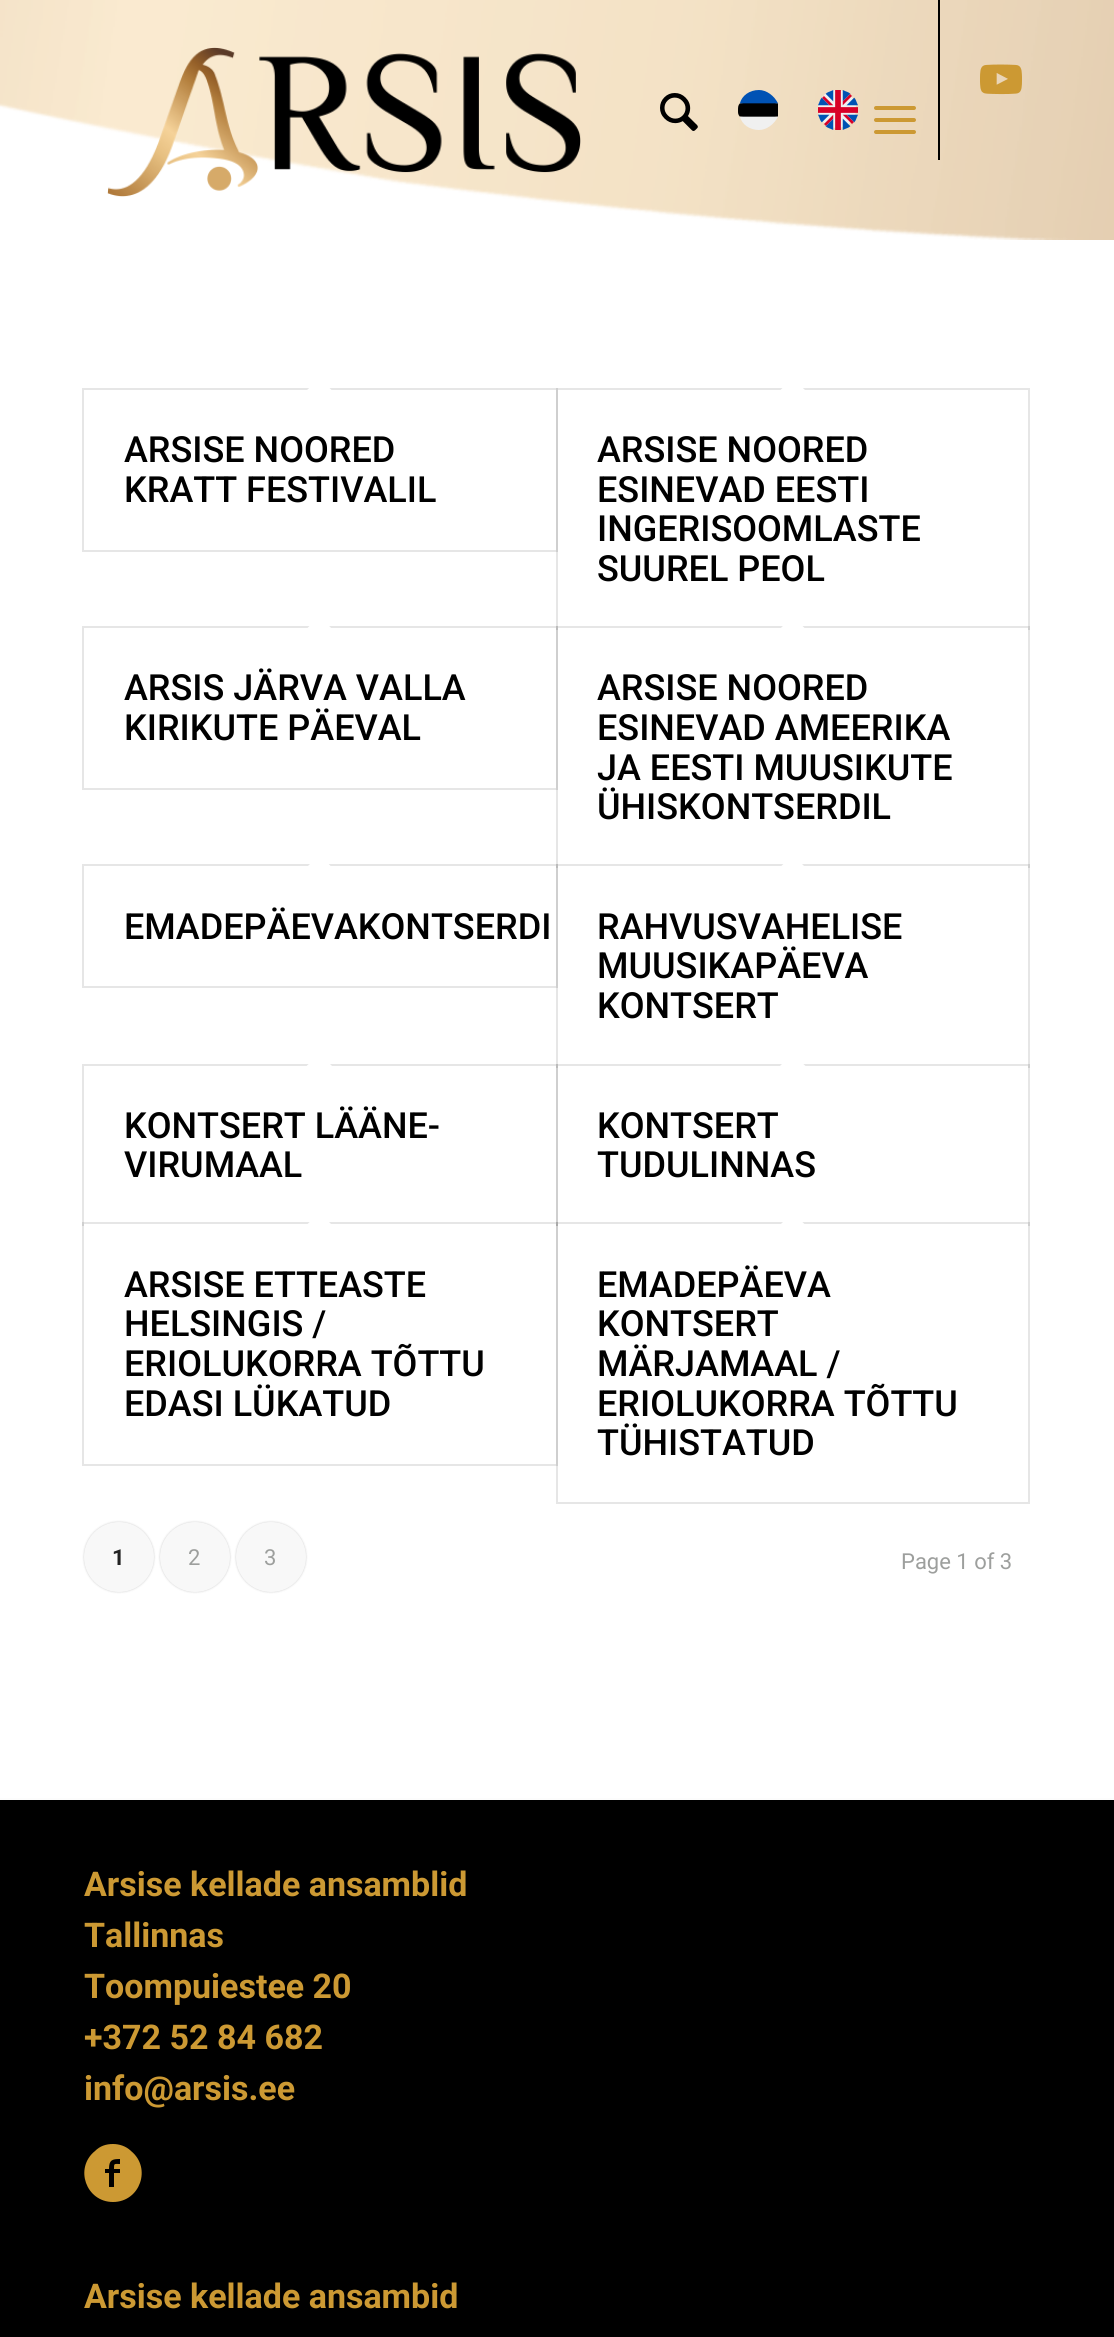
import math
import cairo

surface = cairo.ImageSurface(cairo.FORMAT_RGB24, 1114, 2337)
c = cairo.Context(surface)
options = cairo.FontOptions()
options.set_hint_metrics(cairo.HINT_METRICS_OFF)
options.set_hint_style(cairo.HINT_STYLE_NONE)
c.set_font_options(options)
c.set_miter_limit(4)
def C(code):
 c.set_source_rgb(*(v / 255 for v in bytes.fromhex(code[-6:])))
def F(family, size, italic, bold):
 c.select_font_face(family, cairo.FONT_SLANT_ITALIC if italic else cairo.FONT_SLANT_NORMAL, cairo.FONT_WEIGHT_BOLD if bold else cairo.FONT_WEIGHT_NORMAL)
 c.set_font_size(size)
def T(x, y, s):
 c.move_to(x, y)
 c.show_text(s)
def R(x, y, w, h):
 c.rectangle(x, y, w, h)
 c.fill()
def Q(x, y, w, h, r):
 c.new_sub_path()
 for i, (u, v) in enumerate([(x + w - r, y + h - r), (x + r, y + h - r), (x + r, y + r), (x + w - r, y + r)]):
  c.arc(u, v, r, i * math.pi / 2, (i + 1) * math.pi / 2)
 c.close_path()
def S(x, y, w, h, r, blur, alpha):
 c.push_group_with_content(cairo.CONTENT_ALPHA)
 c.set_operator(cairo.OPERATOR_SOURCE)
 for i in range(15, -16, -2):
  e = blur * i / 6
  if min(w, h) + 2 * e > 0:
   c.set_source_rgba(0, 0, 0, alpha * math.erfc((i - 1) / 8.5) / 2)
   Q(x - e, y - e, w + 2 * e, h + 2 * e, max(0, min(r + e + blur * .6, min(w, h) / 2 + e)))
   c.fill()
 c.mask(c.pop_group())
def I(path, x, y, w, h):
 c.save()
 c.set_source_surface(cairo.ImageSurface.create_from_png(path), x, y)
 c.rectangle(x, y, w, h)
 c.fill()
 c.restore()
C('ffffff')
c.paint()
I('1.png',0,0,1114,240)
I('2.png',107,47,474,150)
C('000000')
R(938,0,2,160)
I('3.png',660,93,38,38)
I('4.png',738,90,40,40)
I('5.png',818,90,40,40)
C('cc9933')
Q(874,118,42,4,2)
c.fill()
Q(874,106,42,4,2)
c.fill()
Q(874,130,42,4,2)
c.fill()
I('6.png',980,64,42,31)
c.rectangle(83,389,474,162)
C('e6e6e6')
c.stroke()
C('ffffff')
c.new_path()
c.move_to(319.5,378)
c.line_to(333.5,392)
c.line_to(319.5,406)
c.line_to(305,392)
c.close_path()
c.fill()
F('Roboto Medium',36,0,0)
C('000000')
T(124,462,'ARSISE NOORED')
T(124,502,'KRATT FESTIVALIL')
c.rectangle(557,389,472,240)
c.set_source_rgba(0,0,0,0.1)
c.stroke()
C('ffffff')
c.new_path()
c.move_to(792.5,378)
c.line_to(807,392)
c.line_to(792.5,406)
c.line_to(778.5,392)
c.close_path()
c.fill()
C('000000')
T(597,462,'ARSISE NOORED')
T(597,502,'ESINEVAD EESTI')
T(597,541,'INGERISOOMLASTE')
T(597,581,'SUUREL PEOL')
c.rectangle(83,627,474,162)
c.set_source_rgba(0,0,0,0.1)
c.stroke()
C('ffffff')
c.new_path()
c.move_to(319.5,616)
c.line_to(333.5,630.5)
c.line_to(319.5,644.5)
c.line_to(305,630.5)
c.close_path()
c.fill()
C('000000')
T(124,700,'ARSIS JÄRVA VALLA')
T(124,740,'KIRIKUTE PÄEVAL')
c.rectangle(557,627,472,240)
c.set_source_rgba(0,0,0,0.1)
c.stroke()
C('ffffff')
R(558,628,470,2)
c.new_path()
c.move_to(792.5,616)
c.line_to(807,630.5)
c.line_to(792.5,644.5)
c.line_to(778.5,630.5)
c.close_path()
c.fill()
C('000000')
T(597,700,'ARSISE NOORED')
T(597,740,'ESINEVAD AMEERIKA')
T(597,780,'JA EESTI MUUSIKUTE')
T(597,819,'ÜHISKONTSERDIL')
c.rectangle(83,865,474,122)
c.set_source_rgba(0,0,0,0.1)
c.stroke()
C('ffffff')
c.new_path()
c.move_to(319.5,854.5)
c.line_to(333.5,869)
c.line_to(319.5,883)
c.line_to(305,869)
c.close_path()
c.fill()
C('000000')
T(124,939,'EMADEPÄEVAKONTSERDI')
c.rectangle(557,865,472,202)
c.set_source_rgba(0,0,0,0.1)
c.stroke()
C('ffffff')
R(558,866,470,2)
c.new_path()
c.move_to(792.5,854.5)
c.line_to(807,869)
c.line_to(792.5,883)
c.line_to(778.5,869)
c.close_path()
c.fill()
C('000000')
T(597,939,'RAHVUSVAHELISE')
T(597,978,'MUUSIKAPÄEVA')
T(597,1018,'KONTSERT')
c.rectangle(83,1065,474,160)
c.set_source_rgba(0,0,0,0.1)
c.stroke()
C('ffffff')
c.new_path()
c.move_to(319.5,1053.5)
c.line_to(333.5,1067.5)
c.line_to(319.5,1081.5)
c.line_to(305,1067.5)
c.close_path()
c.fill()
C('000000')
T(124,1138,'KONTSERT LÄÄNE-')
T(124,1177,'VIRUMAAL')
c.rectangle(557,1065,472,160)
c.set_source_rgba(0,0,0,0.1)
c.stroke()
C('ffffff')
R(558,1066,470,2)
c.new_path()
c.move_to(792.5,1053.5)
c.line_to(807,1067.5)
c.line_to(792.5,1081.5)
c.line_to(778.5,1067.5)
c.close_path()
c.fill()
C('000000')
T(597,1138,'KONTSERT')
T(597,1177,'TUDULINNAS')
c.rectangle(83,1223,474,242)
c.set_source_rgba(0,0,0,0.1)
c.stroke()
C('ffffff')
R(84,1224,472,2)
c.new_path()
c.move_to(319.5,1212.5)
c.line_to(333.5,1226.5)
c.line_to(319.5,1241)
c.line_to(305,1226.5)
c.close_path()
c.fill()
C('000000')
T(124,1297,'ARSISE ETTEASTE')
T(124,1336,'HELSINGIS /')
T(124,1376,'ERIOLUKORRA TÕTTU')
T(124,1416,'EDASI LÜKATUD')
c.rectangle(557,1223,472,280)
c.set_source_rgba(0,0,0,0.1)
c.stroke()
C('ffffff')
R(558,1224,470,2)
c.new_path()
c.move_to(792.5,1212.5)
c.line_to(807,1226.5)
c.line_to(792.5,1241)
c.line_to(778.5,1226.5)
c.close_path()
c.fill()
C('000000')
T(597,1297,'EMADEPÄEVA')
T(597,1336,'KONTSERT')
T(597,1376,'MÄRJAMAAL /')
T(597,1416,'ERIOLUKORRA TÕTTU')
T(597,1455,'TÜHISTATUD')
C('000000')
S(84,1522,70,70,35,1,.2)
C('f8f8f8')
c.arc(119,1557,35,0,2 * math.pi)
c.fill()
F('Roboto',22,0,1)
C('222222')
T(112,1565,'1')
C('000000')
S(160,1522,70,70,35,1,.2)
C('f8f8f8')
c.arc(195,1557,35,0,2 * math.pi)
c.fill()
F('Roboto',22,0,0)
C('9d9f9d')
T(188,1565,'2')
C('000000')
S(236,1522,70,70,35,1,.2)
C('f8f8f8')
c.arc(271,1557,35,0,2 * math.pi)
c.fill()
C('9d9f9d')
T(264,1565,'3')
T(901,1569,'Page 1 of 3')
C('000000')
R(0,1800,1114,537)
C('fcfcfc')
R(0,1798,1114,2)
F('Roboto',34,0,1)
C('cc9933')
T(84,1896,'Arsise kellade ansamblid')
T(84,1947,'Tallinnas')
T(84,1998,'Toompuiestee 20')
T(84,2049,'+372 52 84 682')
T(84,2100,'info@arsis.ee')
c.new_path()
c.move_to(113,2144)
c.curve_to(119,2144,126,2146,131,2151)
c.curve_to(152,2168,140,2202,113,2202)
c.curve_to(86,2202,74,2168,95,2151)
c.curve_to(100,2146,106,2144,113,2144)
c.close_path()
c.move_to(120,2164)
c.line_to(120,2159)
c.curve_to(112,2159,109,2160,109,2169)
c.line_to(105,2169)
c.line_to(105,2173)
c.line_to(109,2173)
c.line_to(109,2187)
c.line_to(114,2187)
c.line_to(114,2173)
c.line_to(120,2173)
c.line_to(120,2169)
c.line_to(114,2169)
c.curve_to(114,2163,114,2164,120,2164)
c.close_path()
c.fill()
T(84,2308,'Arsise kellade ansambid')
surface.write_to_png('o.png')
